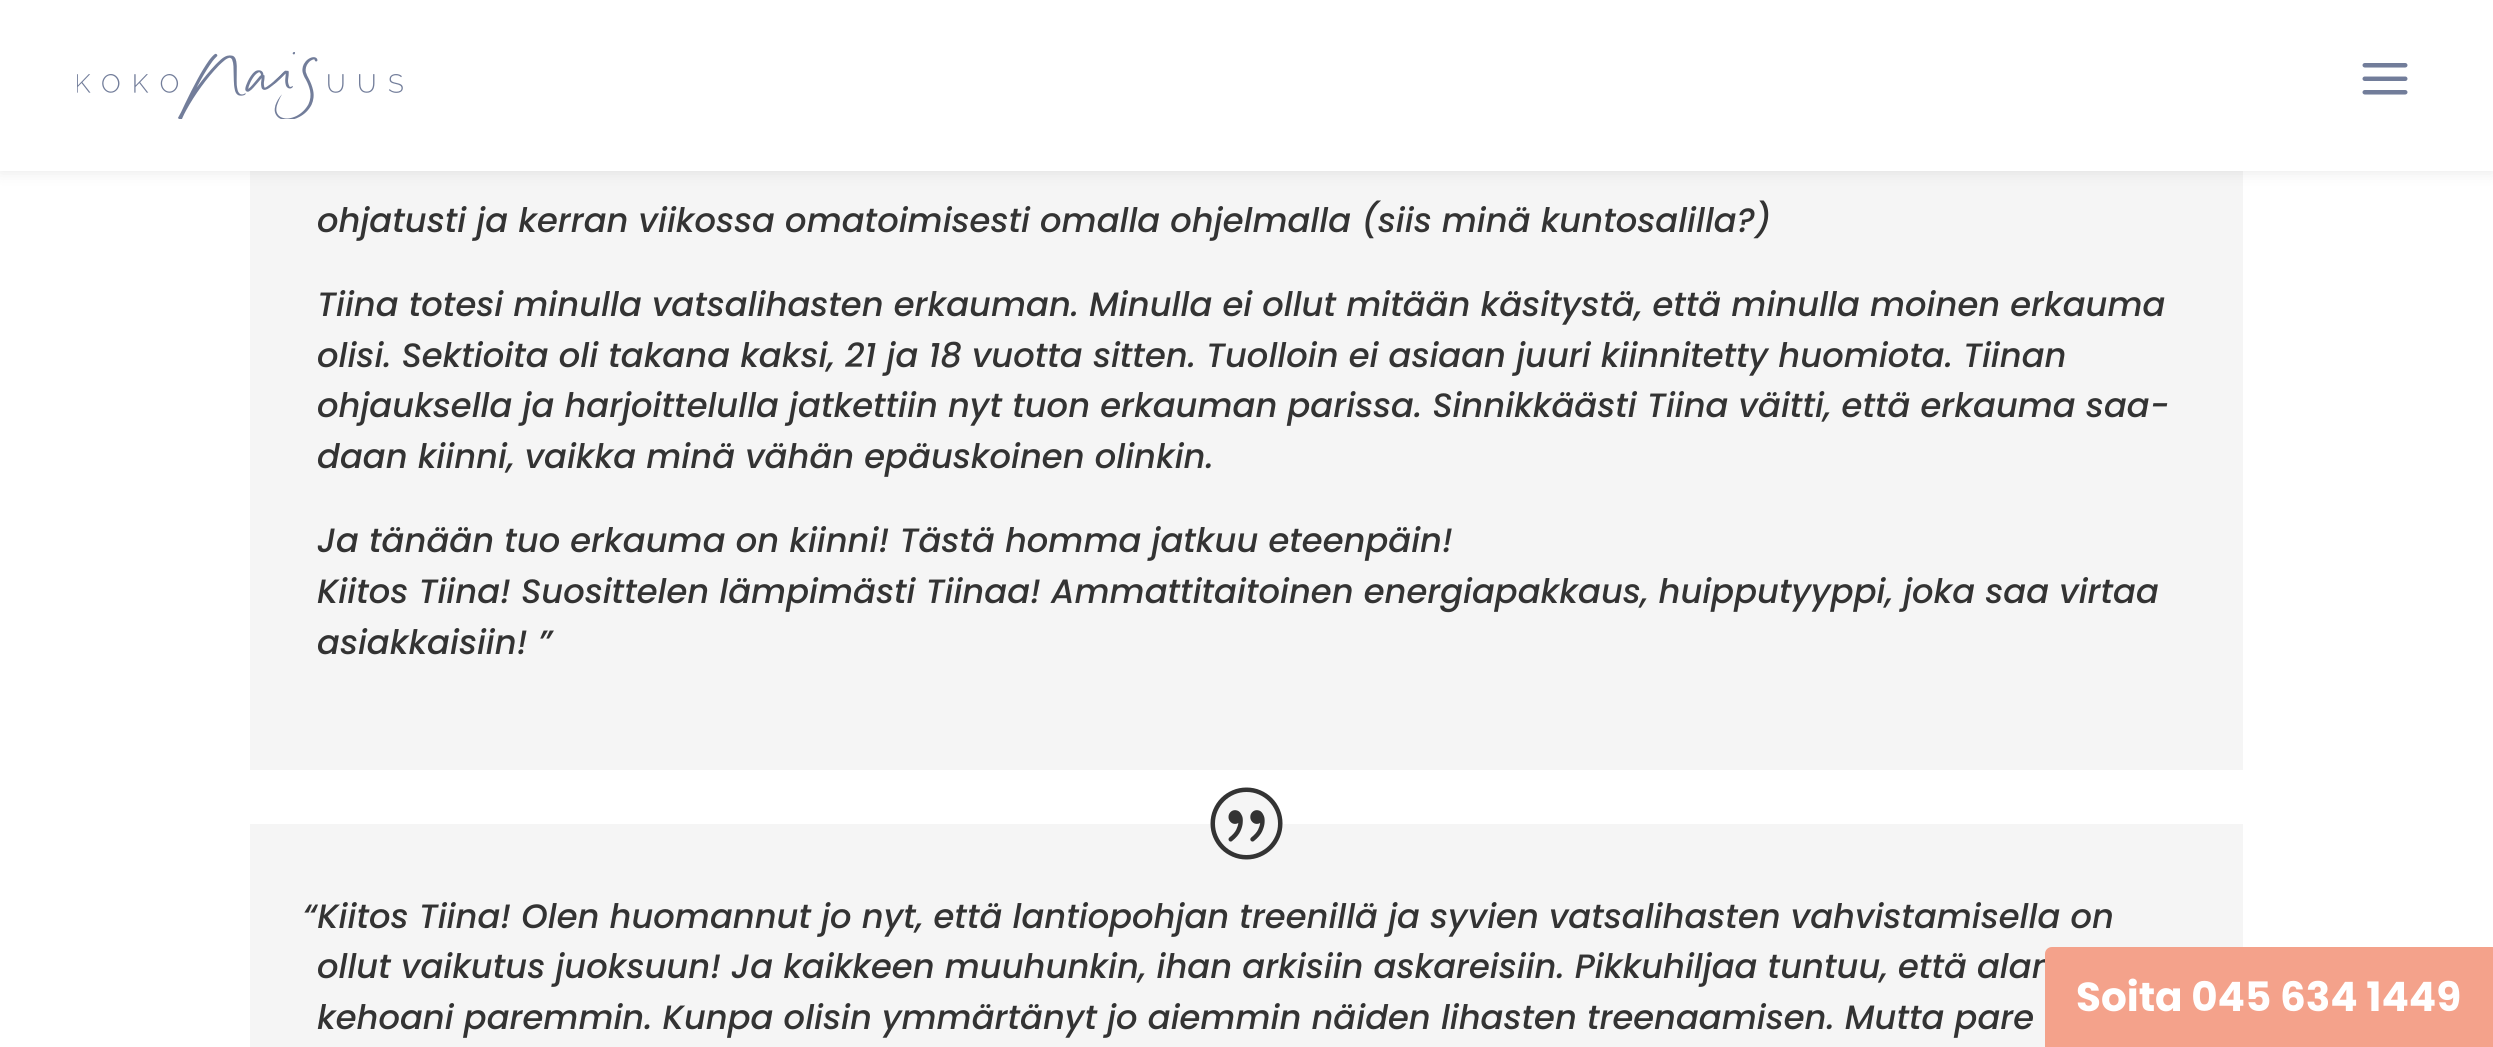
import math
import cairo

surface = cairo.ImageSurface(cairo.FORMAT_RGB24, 2493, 1047)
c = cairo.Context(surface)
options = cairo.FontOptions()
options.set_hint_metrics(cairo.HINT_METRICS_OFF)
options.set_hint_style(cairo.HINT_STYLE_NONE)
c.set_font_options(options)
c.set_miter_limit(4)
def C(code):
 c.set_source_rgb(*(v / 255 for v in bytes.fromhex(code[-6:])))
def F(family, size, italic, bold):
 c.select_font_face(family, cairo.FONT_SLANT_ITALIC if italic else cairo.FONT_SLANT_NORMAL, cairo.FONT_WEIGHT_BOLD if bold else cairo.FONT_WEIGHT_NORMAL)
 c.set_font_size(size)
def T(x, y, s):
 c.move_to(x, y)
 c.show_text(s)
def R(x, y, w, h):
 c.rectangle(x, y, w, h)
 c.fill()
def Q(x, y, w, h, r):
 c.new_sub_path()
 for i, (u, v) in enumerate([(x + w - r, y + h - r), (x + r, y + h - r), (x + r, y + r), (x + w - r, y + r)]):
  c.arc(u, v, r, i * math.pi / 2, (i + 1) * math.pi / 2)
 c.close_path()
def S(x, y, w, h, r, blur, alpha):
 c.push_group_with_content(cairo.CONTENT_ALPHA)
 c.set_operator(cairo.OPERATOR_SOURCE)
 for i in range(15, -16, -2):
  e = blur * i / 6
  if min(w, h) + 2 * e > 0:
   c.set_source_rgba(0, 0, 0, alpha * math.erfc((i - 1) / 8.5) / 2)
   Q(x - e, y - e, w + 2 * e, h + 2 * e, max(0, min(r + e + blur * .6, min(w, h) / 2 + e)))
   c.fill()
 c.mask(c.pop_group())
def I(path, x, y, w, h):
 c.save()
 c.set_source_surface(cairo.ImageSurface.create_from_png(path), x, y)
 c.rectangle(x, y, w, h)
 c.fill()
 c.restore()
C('ffffff')
c.paint()
C('f5f5f5')
R(250,171,1993,599)
C('000000')
S(0,0,2493,171,0,8,.1)
C('ffffff')
R(0,0,2493,171)
I('1.png',77,52,326,67)
I('2.png',2362,63,46,32)
F('Poppins Medium',33.75,1,0)
C('333333')
T(317,232,'ohjatusti ja kerran viikossa omatoimisesti omalla ohjelmalla (siis minä kuntosalilla?)')
T(317,316,'Tiina totesi minulla vatsalihasten erkauman. Minulla ei ollut mitään käsitystä, että minulla moinen erkauma')
T(317,367,'olisi. Sektioita oli takana kaksi, 21 ja 18 vuotta sitten. Tuolloin ei asiaan juuri kiinnitetty huomiota. Tiinan')
T(317,417,'ohjauksella ja harjoittelulla jatkettiin nyt tuon erkauman parissa. Sinnikkäästi Tiina väitti, että erkauma saa-')
T(317,468,'daan kiinni, vaikka minä vähän epäuskoinen olinkin.')
T(317,552,'Ja tänään tuo erkauma on kiinni! Tästä homma jatkuu eteenpäin!')
T(317,603,'Kiitos Tiina! Suosittelen lämpimästi Tiinaa! Ammattitaitoinen energiapakkaus, huipputyyppi, joka saa virtaa')
T(317,654,'asiakkaisiin! ”')
C('f5f5f5')
R(250,824,1993,223)
c.new_path()
c.arc(1247,824,36,0,2 * math.pi)
c.fill()
I('3.png',1210,787,73,73)
C('333333')
T(303,928,'“Kiitos Tiina! Olen huomannut jo nyt, että lantiopohjan treenillä ja syvien vatsalihasten vahvistamisella on')
T(317,978,'ollut vaikutus juoksuun! Ja kaikkeen muuhunkin, ihan arkisiin askareisiin. Pikkuhiljaa tuntuu, että alan')
T(317,1029,'kehoani paremmin. Kunpa olisin ymmärtänyt jo aiemmin näiden lihasten treenaamisen. Mutta pare')
C('f4a28b')
c.new_path()
c.move_to(2052,947)
c.line_to(2493,947)
c.line_to(2493,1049)
c.line_to(2045,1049)
c.line_to(2045,954)
c.curve_to(2045,950,2048,947,2052,947)
c.close_path()
c.fill()
F('Poppins',40.5,0,1)
C('ffffff')
T(2076,1011,'Soita 045 634 1449')
surface.write_to_png('o.png')
